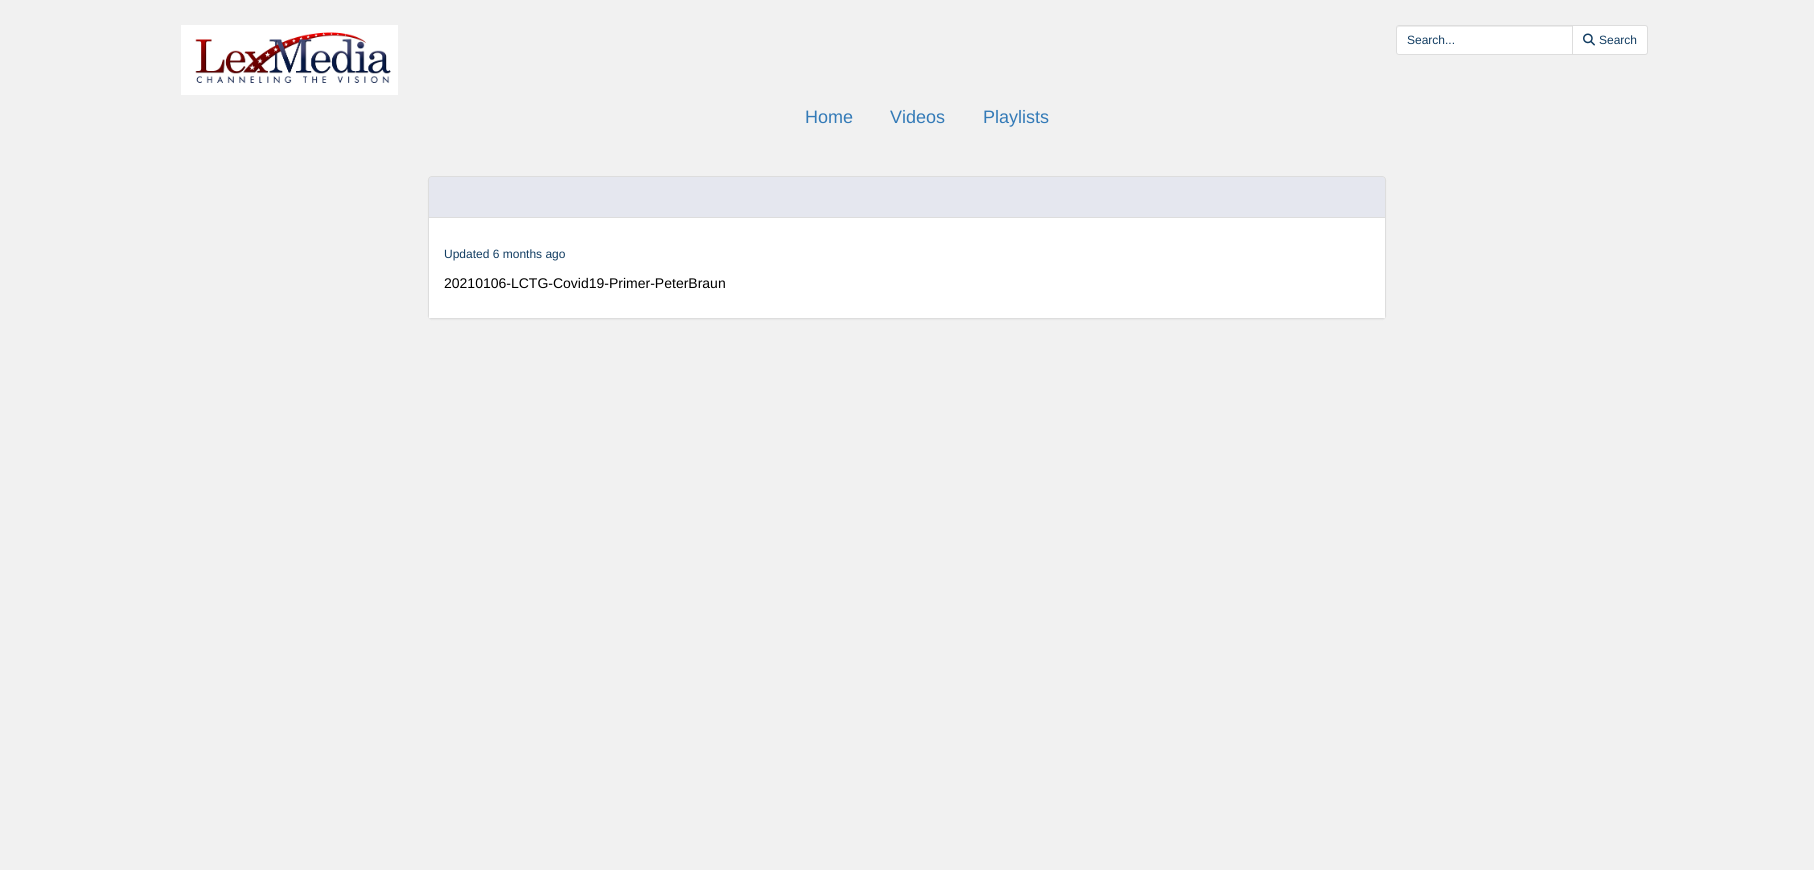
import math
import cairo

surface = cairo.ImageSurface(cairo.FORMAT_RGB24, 1814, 870)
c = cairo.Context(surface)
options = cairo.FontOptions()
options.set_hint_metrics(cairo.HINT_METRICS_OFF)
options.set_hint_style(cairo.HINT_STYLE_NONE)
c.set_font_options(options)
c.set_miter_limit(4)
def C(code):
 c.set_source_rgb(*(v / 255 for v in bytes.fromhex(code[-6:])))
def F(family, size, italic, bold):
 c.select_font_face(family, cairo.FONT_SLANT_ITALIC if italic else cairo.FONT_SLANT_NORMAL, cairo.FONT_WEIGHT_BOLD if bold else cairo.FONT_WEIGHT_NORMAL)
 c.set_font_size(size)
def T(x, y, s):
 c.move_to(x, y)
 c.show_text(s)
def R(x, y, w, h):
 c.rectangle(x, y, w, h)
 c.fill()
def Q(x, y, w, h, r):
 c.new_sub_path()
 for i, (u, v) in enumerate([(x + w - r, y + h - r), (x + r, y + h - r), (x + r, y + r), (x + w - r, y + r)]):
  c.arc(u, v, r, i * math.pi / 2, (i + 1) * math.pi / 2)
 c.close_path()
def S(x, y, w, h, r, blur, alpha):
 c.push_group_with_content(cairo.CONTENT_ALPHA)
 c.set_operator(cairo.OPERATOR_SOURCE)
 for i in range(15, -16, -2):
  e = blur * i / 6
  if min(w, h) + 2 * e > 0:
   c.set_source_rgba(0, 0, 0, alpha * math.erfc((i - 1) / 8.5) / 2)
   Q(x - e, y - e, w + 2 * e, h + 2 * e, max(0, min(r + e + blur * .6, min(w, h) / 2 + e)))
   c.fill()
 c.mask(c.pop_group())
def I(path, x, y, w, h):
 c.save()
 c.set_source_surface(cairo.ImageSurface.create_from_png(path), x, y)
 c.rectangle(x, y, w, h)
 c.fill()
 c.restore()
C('f1f1f1')
c.paint()
I('1.png',181,25,217,70)
C('ffffff')
c.new_path()
c.move_to(1399,25)
c.line_to(1573,25)
c.line_to(1573,55)
c.line_to(1399,55)
c.curve_to(1397.5,55,1396,53.5,1396,52)
c.line_to(1396,28)
c.curve_to(1396,26.5,1397.5,25,1399,25)
c.close_path()
c.fill()
C('ececec')
c.new_path()
c.move_to(1399,27)
c.line_to(1572,27)
c.line_to(1572,26)
c.line_to(1398,26)
c.curve_to(1397,27,1397,28,1397,29)
c.curve_to(1397,28,1398,27,1399,27)
c.close_path()
c.fill()
c.new_path()
c.move_to(1399,25.5)
c.line_to(1572.5,25.5)
c.line_to(1572.5,54.5)
c.line_to(1399,54.5)
c.curve_to(1397.5,54.5,1396.5,53.5,1396.5,52)
c.line_to(1396.5,28)
c.curve_to(1396.5,26.5,1397.5,25.5,1399,25.5)
c.close_path()
C('dddddd')
c.set_line_width(1)
c.stroke()
F('Liberation Sans',12,0,0)
C('123d62')
T(1407,44,'Search...')
C('ffffff')
c.new_path()
c.move_to(1572.5,25.5)
c.line_to(1645,25.5)
c.curve_to(1646.5,25.5,1647.5,26.5,1647.5,28)
c.line_to(1647.5,52)
c.curve_to(1647.5,53.5,1646.5,54.5,1645,54.5)
c.line_to(1572.5,54.5)
c.close_path()
c.fill_preserve()
C('dddddd')
c.stroke()
I('2.png',1583,33,12,13)
C('123d62')
T(1599,44,'Search')
F('Liberation Sans',18,0,0)
C('337ab7')
T(805,123,'Home')
T(890,123,'Videos')
T(983,123,'Playlists')
C('000000')
S(428,177,958,143,4,.5,.05)
Q(428.5,176.5,957,142,3.5)
C('dddddd')
c.stroke()
C('e5e7ef')
c.new_path()
c.move_to(432,177)
c.line_to(1382,177)
c.curve_to(1383.5,177,1385,178.5,1385,180)
c.line_to(1385,218)
c.line_to(429,218)
c.line_to(429,180)
c.curve_to(429,178.5,430.5,177,432,177)
c.close_path()
c.fill()
C('dddddd')
R(429,217,956,1)
C('ffffff')
R(429,218,956,100)
F('Liberation Sans',12,0,0)
C('123d62')
T(444,258,'Updated 6 months ago')
F('Liberation Sans',14,0,0)
C('000000')
T(444,288,'20210106-LCTG-Covid19-Primer-PeterBraun')
surface.write_to_png('o.png')
